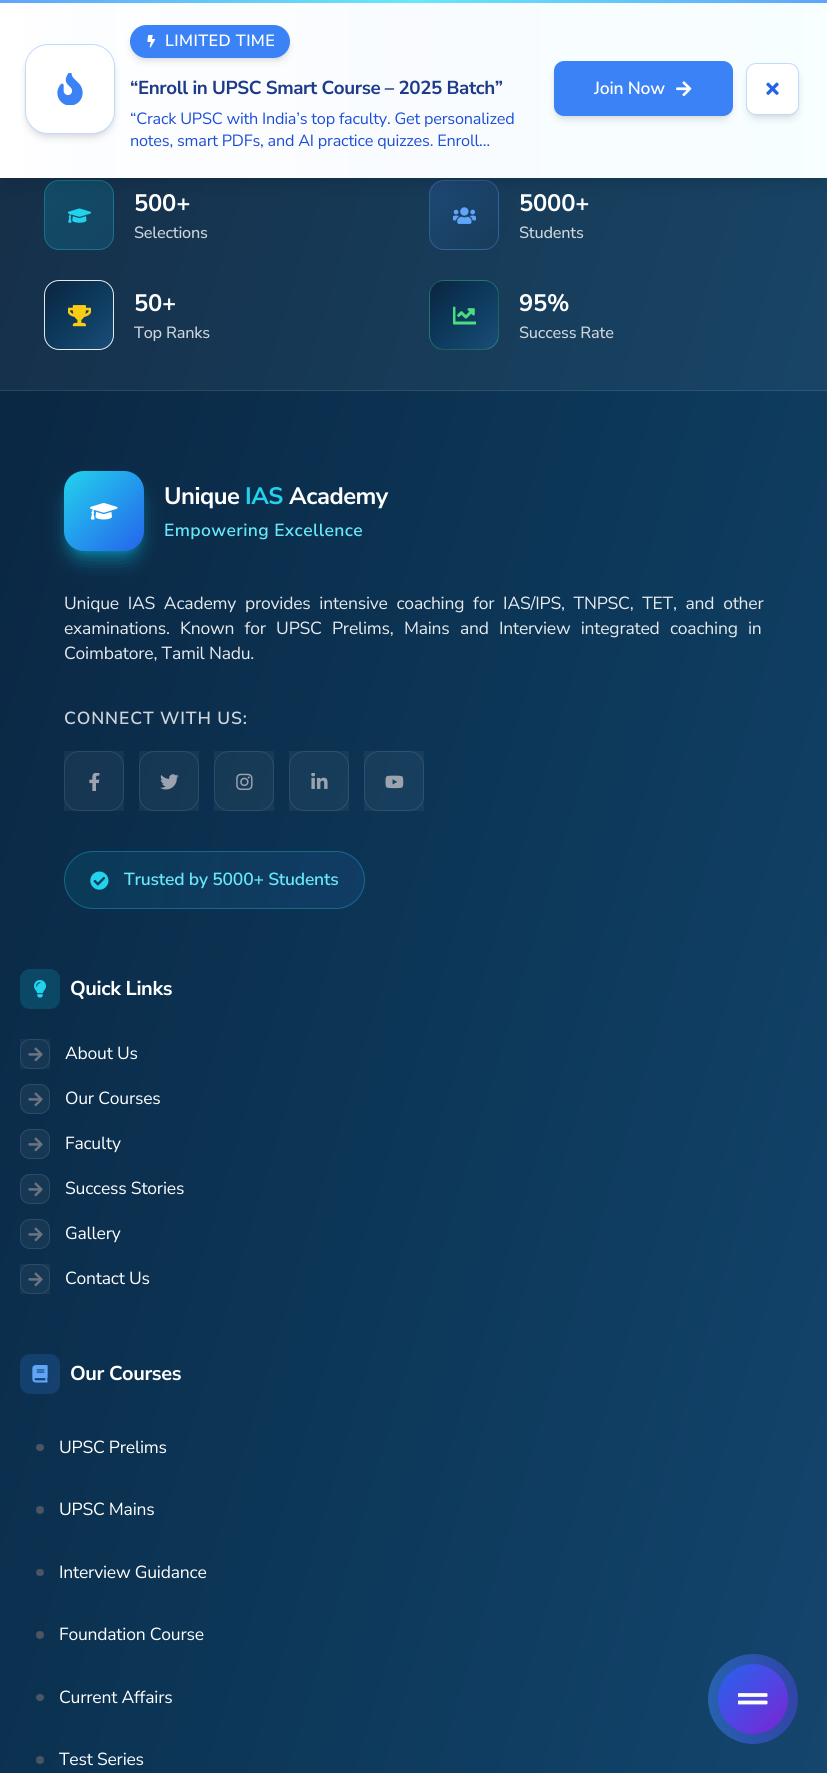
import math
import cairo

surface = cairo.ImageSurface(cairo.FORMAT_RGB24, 827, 1773)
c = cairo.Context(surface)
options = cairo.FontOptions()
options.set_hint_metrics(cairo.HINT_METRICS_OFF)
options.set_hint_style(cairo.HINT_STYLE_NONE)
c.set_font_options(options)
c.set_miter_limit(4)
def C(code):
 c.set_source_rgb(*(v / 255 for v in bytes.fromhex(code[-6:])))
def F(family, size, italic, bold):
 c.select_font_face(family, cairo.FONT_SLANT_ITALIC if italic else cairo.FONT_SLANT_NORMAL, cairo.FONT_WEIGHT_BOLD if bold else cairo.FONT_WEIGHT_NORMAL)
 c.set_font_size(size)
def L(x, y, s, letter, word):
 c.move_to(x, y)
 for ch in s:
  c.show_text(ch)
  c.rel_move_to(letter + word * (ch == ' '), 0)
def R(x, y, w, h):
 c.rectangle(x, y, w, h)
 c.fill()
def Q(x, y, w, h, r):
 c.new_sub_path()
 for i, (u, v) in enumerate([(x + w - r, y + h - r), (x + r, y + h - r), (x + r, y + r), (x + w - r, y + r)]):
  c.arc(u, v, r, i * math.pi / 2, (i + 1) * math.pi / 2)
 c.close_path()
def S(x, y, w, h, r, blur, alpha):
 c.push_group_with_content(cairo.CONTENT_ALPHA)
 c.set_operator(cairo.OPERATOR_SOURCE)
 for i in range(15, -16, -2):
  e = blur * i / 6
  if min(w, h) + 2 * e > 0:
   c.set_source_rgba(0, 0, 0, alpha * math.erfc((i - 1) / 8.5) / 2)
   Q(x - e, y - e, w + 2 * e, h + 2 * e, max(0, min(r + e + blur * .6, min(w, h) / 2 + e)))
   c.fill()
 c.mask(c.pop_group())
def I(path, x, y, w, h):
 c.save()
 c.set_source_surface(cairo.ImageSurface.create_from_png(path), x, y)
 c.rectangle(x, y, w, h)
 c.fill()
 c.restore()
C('ffffff')
c.paint()
gradient = cairo.LinearGradient(-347,1305,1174,1757)
gradient.add_color_stop_rgba(0,0.039,0.145,0.251,1)
gradient.add_color_stop_rgba(.5,0.051,0.227,0.361,1)
gradient.add_color_stop_rgba(1,0.102,0.302,0.478,1)
c.set_source(gradient)
R(0,178,827,1595)
c.set_source_rgba(1,1,1,0.05)
R(0,178,827,213)
c.save()
Q(44,180,70,70,15)
c.clip()
gradient = cairo.LinearGradient(45,114,113,181)
gradient.add_color_stop_rgba(0,0.075,0.302,0.408,1)
gradient.add_color_stop_rgba(1,0.075,0.275,0.38,1)
c.set_source(gradient)
R(54,180,50,1)
gradient = cairo.LinearGradient(-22,181,45,249)
gradient.add_color_stop_rgba(0,0.075,0.302,0.404,1)
gradient.add_color_stop_rgba(1,0.075,0.271,0.38,1)
c.set_source(gradient)
R(44,190,1,50)
gradient = cairo.LinearGradient(45,181,113,249)
gradient.add_color_stop_rgba(0,0.024,0.714,0.831,.2)
gradient.add_color_stop_rgba(1,0.031,0.569,0.698,.2)
c.set_source(gradient)
R(45,181,68,68)
gradient = cairo.LinearGradient(113,181,180,249)
gradient.add_color_stop_rgba(0,0.075,0.31,0.416,1)
gradient.add_color_stop_rgba(1,0.078,0.278,0.388,1)
c.set_source(gradient)
R(113,190,1,50)
gradient = cairo.LinearGradient(45,249,113,316)
gradient.add_color_stop_rgba(0,0.024,0.714,0.831,.2)
gradient.add_color_stop_rgba(1,0.031,0.569,0.698,.2)
c.set_source(gradient)
R(54,249,50,1)
c.restore()
Q(44.5,180.5,69,69,14.5)
c.set_source_rgba(0.133,0.827,0.933,0.3)
c.set_line_width(1)
c.stroke()
c.save()
Q(429,180,70,70,15)
c.clip()
gradient = cairo.LinearGradient(430,114,498,181)
gradient.add_color_stop_rgba(0,0.122,0.29,0.471,1)
gradient.add_color_stop_rgba(1,0.094,0.235,0.349,1)
c.set_source(gradient)
R(439,180,50,1)
gradient = cairo.LinearGradient(363,181,430,249)
gradient.add_color_stop_rgba(0,0.122,0.29,0.471,1)
gradient.add_color_stop_rgba(1,0.094,0.231,0.349,1)
c.set_source(gradient)
R(429,190,1,50)
gradient = cairo.LinearGradient(430,181,498,249)
gradient.add_color_stop_rgba(0,0.231,0.51,0.965,.2)
gradient.add_color_stop_rgba(1,0.231,0.51,0.965,0)
c.set_source(gradient)
R(430,181,68,68)
gradient = cairo.LinearGradient(498,181,565,249)
gradient.add_color_stop_rgba(0,0.122,0.29,0.478,1)
gradient.add_color_stop_rgba(1,0.094,0.239,0.357,1)
c.set_source(gradient)
R(498,190,1,50)
gradient = cairo.LinearGradient(430,249,498,316)
gradient.add_color_stop_rgba(0,0.122,0.29,0.475,1)
gradient.add_color_stop_rgba(1,0.094,0.239,0.353,1)
c.set_source(gradient)
R(439,249,50,1)
c.restore()
Q(429.5,180.5,69,69,14.5)
c.set_source_rgba(0.376,0.647,0.98,0.3)
c.stroke()
C('000000')
S(5,10,818,168,0,4,.1)
I('5.png',68,208,23,15)
I('6.png',453,207,23,17)
S(4,16,820,170,0,9.5,.1)
gradient = cairo.LinearGradient(0,1.3,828,1.2)
gradient.add_color_stop_rgba(0,0.376,0.647,0.98,1)
gradient.add_color_stop_rgba(.5,0.404,0.91,0.976,1)
gradient.add_color_stop_rgba(1,0.376,0.647,0.98,1)
c.set_source(gradient)
R(0,0,827,3)
gradient = cairo.LinearGradient(0,89,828,89)
gradient.add_color_stop_rgba(0,1,1,1,1)
gradient.add_color_stop_rgba(.5,0.937,0.965,1,1)
gradient.add_color_stop_rgba(1,0.925,0.996,1,1)
c.set_source(gradient)
R(0,3,827,175)
c.set_source_rgba(1,1,1,0.6)
R(116,3,711,175)
C('000000')
S(28,50,85,84,20,3,.1)
S(26,51,88,87,21,4,.1)
C('ffffff')
Q(25.5,44.5,89,89,22.5)
c.fill_preserve()
C('bfdbfe')
c.stroke()
I('1.png',57,73,26,32)
C('000000')
S(133,30,155,28,14,2.5,.1)
S(131,31,158,30,15,4,.1)
C('3b82f6')
Q(130,25,160,33,16.5)
c.fill()
I('2.png',147,35,9,13)
F('Nunito Sans SemiBold',16.25,0,0)
C('ffffff')
L(165,46,'LIMITED TIME',.4,0)
F('Nunito Sans',18.75,0,1)
C('1e3a8a')
L(130,94,'“Enroll in UPSC Smart Course – 2025 Batch”',-.4,0)
F('Nunito Sans',16.25,0,0)
C('1d4ed8')
L(130,124,'“Crack UPSC with India’s top faculty. Get personalized',-.2,0)
L(130,146,'notes, smart PDFs, and AI practice quizzes. Enroll…',-.2,0)
C('000000')
S(556,66,174,50,8,2.5,.1)
S(555,68,176,52,9,4,.1)
C('3b82f6')
Q(554,61,179,55,10)
c.fill()
F('Nunito Sans SemiBold',17.5,0,0)
C('ffffff')
L(594,94,'Join Now',-.2,0)
I('3.png',676,81,16,16)
C('000000')
S(749,69,47,46,8,2.5,.1)
S(748,70,50,49,9,4,.1)
C('ffffff')
Q(746.5,63.5,52,51,9.5)
c.fill_preserve()
C('bfdbfe')
c.stroke()
I('4.png',766,82,13,13)
c.set_source_rgba(1,1,1,0.1)
R(0,390,827,1)
F('Nunito Sans',23.75,0,1)
C('ffffff')
L(134,211,'500+',-.2,0)
F('Nunito Sans Medium',16.25,0,0)
C('ced5db')
L(134,238,'Selections',-.2,0)
F('Nunito Sans',23.75,0,1)
C('ffffff')
L(519,211,'5000+',-.2,0)
F('Nunito Sans Medium',16.25,0,0)
C('ced5db')
L(519,238,'Students',-.2,0)
c.save()
Q(44,280,70,70,15)
c.clip()
gradient = cairo.LinearGradient(45,281,113,349)
gradient.add_color_stop_rgba(0,0.039,0.145,0.251,1)
gradient.add_color_stop_rgba(.5,0.051,0.227,0.361,1)
gradient.add_color_stop_rgba(1,0.102,0.302,0.478,1)
c.set_source(gradient)
R(45,281,68,68)
c.restore()
Q(44.5,280.5,69,69,14.5)
C('e5e7eb')
c.stroke()
I('7.png',68,305,23,22)
F('Nunito Sans',23.75,0,1)
C('ffffff')
L(134,311,'50+',-.2,0)
F('Nunito Sans Medium',16.25,0,0)
C('ced5db')
L(134,338,'Top Ranks',-.2,0)
c.save()
Q(429,280,70,70,15)
c.clip()
gradient = cairo.LinearGradient(430,214,498,281)
gradient.add_color_stop_rgba(0,0.039,0.145,0.251,1)
gradient.add_color_stop_rgba(.5,0.051,0.227,0.361,1)
gradient.add_color_stop_rgba(1,0.102,0.302,0.478,1)
c.set_source(gradient)
R(439,280,50,1)
gradient = cairo.LinearGradient(363,281,430,349)
gradient.add_color_stop_rgba(0,0.039,0.145,0.251,1)
gradient.add_color_stop_rgba(.5,0.051,0.227,0.361,1)
gradient.add_color_stop_rgba(1,0.102,0.302,0.478,1)
c.set_source(gradient)
R(429,290,1,50)
gradient = cairo.LinearGradient(430,281,498,349)
gradient.add_color_stop_rgba(0,0.039,0.145,0.251,1)
gradient.add_color_stop_rgba(.5,0.051,0.227,0.361,1)
gradient.add_color_stop_rgba(1,0.102,0.302,0.478,1)
c.set_source(gradient)
R(430,281,68,68)
gradient = cairo.LinearGradient(498,281,565,349)
gradient.add_color_stop_rgba(0,0.039,0.145,0.251,1)
gradient.add_color_stop_rgba(.5,0.051,0.227,0.361,1)
gradient.add_color_stop_rgba(1,0.102,0.302,0.478,1)
c.set_source(gradient)
R(498,290,1,50)
gradient = cairo.LinearGradient(430,349,498,416)
gradient.add_color_stop_rgba(0,0.039,0.145,0.251,1)
gradient.add_color_stop_rgba(.5,0.051,0.227,0.361,1)
gradient.add_color_stop_rgba(1,0.102,0.302,0.478,1)
c.set_source(gradient)
R(439,349,50,1)
c.restore()
Q(429.5,280.5,69,69,14.5)
c.set_source_rgba(0.29,0.871,0.502,0.3)
c.stroke()
I('8.png',453,306,23,19)
F('Nunito Sans',23.75,0,1)
C('ffffff')
L(519,311,'95%',-.2,0)
F('Nunito Sans Medium',16.25,0,0)
C('ced5db')
L(519,338,'Success Rate',-.2,0)
C('06b6d4')
S(69,481,70,70,15,4,.5)
S(68,488,72,72,16,9.5,.5)
gradient = cairo.LinearGradient(64,471,144,551)
gradient.add_color_stop_rgba(0,0.133,0.827,0.933,1)
gradient.add_color_stop_rgba(1,0.145,0.388,0.922,1)
c.set_source(gradient)
Q(64,471,80,80,20)
c.fill()
I('9.png',90,503,28,17)
F('Nunito Sans',23.75,0,1)
C('ffffff')
L(164,504,'Unique',-.5,0)
C('22d3ee')
L(245,504,'IAS',-.5,0)
C('ffffff')
L(289,504,'Academy',-.5,0)
F('Nunito Sans SemiBold',17.5,0,0)
C('67e8f9')
L(164,536,'Empowering Excellence',.4,0)
F('Nunito Sans',17.5,0,0)
C('e7ebee')
L(64,609,'Unique IAS Academy provides intensive coaching for IAS/IPS, TNPSC, TET, and other',-.2,4.5)
L(64,634,'examinations. Known for UPSC Prelims, Mains and Interview integrated coaching in',-.2,6)
L(64,659,'Coimbatore, Tamil Nadu.',-.2,0)
F('Nunito Sans SemiBold',17.5,0,0)
C('ced5db')
L(64,724,'CONNECT WITH US:',.9,0)
c.set_source_rgba(1,1,1,0.05)
R(64,751,60,60)
Q(64.5,751.5,59,59,14.5)
c.set_source_rgba(1,1,1,0.1)
c.stroke()
I('10.png',89,773,11,18)
c.set_source_rgba(1,1,1,0.05)
R(139,751,60,60)
Q(139.5,751.5,59,59,14.5)
c.set_source_rgba(1,1,1,0.1)
c.stroke()
I('11.png',160,774,19,16)
c.set_source_rgba(1,1,1,0.05)
R(214,751,60,60)
Q(214.5,751.5,59,59,14.5)
c.set_source_rgba(1,1,1,0.1)
c.stroke()
I('12.png',236,773,17,17)
c.set_source_rgba(1,1,1,0.05)
R(289,751,60,60)
Q(289.5,751.5,59,59,14.5)
c.set_source_rgba(1,1,1,0.1)
c.stroke()
I('13.png',311,773,17,16)
c.set_source_rgba(1,1,1,0.05)
R(364,751,60,60)
Q(364.5,751.5,59,59,14.5)
c.set_source_rgba(1,1,1,0.1)
c.stroke()
I('14.png',385,775,19,14)
c.save()
Q(64,851,301,58,29)
c.clip()
gradient = cairo.LinearGradient(-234,880,65,880)
gradient.add_color_stop_rgba(0,0.043,0.227,0.345,1)
gradient.add_color_stop_rgba(1,0.063,0.208,0.357,1)
c.set_source(gradient)
R(64,872,1,16)
gradient = cairo.LinearGradient(65,880,364,880)
gradient.add_color_stop_rgba(0,0.024,0.714,0.831,.1)
gradient.add_color_stop_rgba(1,0.231,0.51,0.965,.1)
c.set_source(gradient)
R(65,851,299,58)
gradient = cairo.LinearGradient(364,880,663,880)
gradient.add_color_stop_rgba(0,0.043,0.255,0.38,1)
gradient.add_color_stop_rgba(1,0.067,0.235,0.392,1)
c.set_source(gradient)
R(364,872,1,16)
c.restore()
Q(64.5,851.5,300,57,28.5)
c.set_source_rgba(0.133,0.827,0.933,0.3)
c.stroke()
I('15.png',90,871,19,19)
C('67e8f9')
L(124,885,'Trusted by 5000+ Students',-.2,0)
C('0a4866')
Q(20,969,40,40,10)
c.fill()
I('16.png',34,980,12,18)
F('Nunito Sans',20,0,1)
C('ffffff')
L(70,995,'Quick Links',-.4,0)
c.set_source_rgba(1,1,1,0.05)
R(20,1039,30,30)
Q(20.5,1039.5,29,29,9.5)
c.set_source_rgba(1,1,1,0.1)
c.stroke()
I('17.png',28,1047,15,15)
F('Nunito Sans',17.5,0,0)
C('ffffff')
L(65,1059,'About Us',-.2,0)
C('173854')
Q(20,1084,30,30,10)
c.fill()
Q(20.5,1084.5,29,29,9.5)
c.set_source_rgba(1,1,1,0.1)
c.stroke()
I('18.png',28,1092,15,15)
C('ffffff')
L(65,1104,'Our Courses',-.2,0)
C('173854')
Q(20,1129,30,30,10)
c.fill()
Q(20.5,1129.5,29,29,9.5)
c.set_source_rgba(1,1,1,0.1)
c.stroke()
I('18.png',28,1137,15,15)
C('ffffff')
L(65,1149,'Faculty',-.2,0)
C('173855')
Q(20,1174,30,30,10)
c.fill()
Q(20.5,1174.5,29,29,9.5)
c.set_source_rgba(1,1,1,0.1)
c.stroke()
I('19.png',28,1182,15,15)
C('ffffff')
L(65,1194,'Success Stories',-.2,0)
C('173855')
Q(20,1219,30,30,10)
c.fill()
Q(20.5,1219.5,29,29,9.5)
c.set_source_rgba(1,1,1,0.1)
c.stroke()
I('19.png',28,1227,15,15)
C('ffffff')
L(65,1239,'Gallery',-.2,0)
c.set_source_rgba(1,1,1,0.05)
R(20,1264,30,30)
Q(20.5,1264.5,29,29,9.5)
c.set_source_rgba(1,1,1,0.1)
c.stroke()
I('20.png',28,1272,15,15)
C('ffffff')
L(65,1284,'Contact Us',-.2,0)
c.set_source_rgba(0.231,0.51,0.965,0.2)
Q(20,1354,40,40,10)
c.fill()
I('21.png',32,1365,16,18)
F('Nunito Sans',20,0,1)
C('ffffff')
L(70,1380,'Our Courses',-.4,0)
C('4b5563')
Q(36,1444,8,7,3.5)
c.fill()
F('Nunito Sans',17.5,0,0)
C('ffffff')
L(59,1453,'UPSC Prelims',-.2,0)
C('4b5563')
c.new_path()
c.arc(40,1510,4,0,2 * math.pi)
c.fill()
C('ffffff')
L(59,1515,'UPSC Mains',-.2,0)
C('4b5563')
Q(36,1569,8,7,3.5)
c.fill()
C('ffffff')
L(59,1578,'Interview Guidance',-.2,0)
C('4b5563')
c.new_path()
c.arc(40,1635,4,0,2 * math.pi)
c.fill()
C('ffffff')
L(59,1640,'Foundation Course',-.2,0)
C('4b5563')
Q(36,1694,8,7,3.5)
c.fill()
C('ffffff')
L(59,1703,'Current Affairs',-.2,0)
C('4b5563')
c.new_path()
c.arc(40,1760,4,0,2 * math.pi)
c.fill()
C('ffffff')
L(59,1765,'Test Series',-.2,0)
gradient = cairo.LinearGradient(708,1699,797,1699)
gradient.add_color_stop_rgba(0,0.231,0.51,0.965,.5)
gradient.add_color_stop_rgba(1,0.31,0.275,0.898,.5)
c.set_source(gradient)
c.new_path()
c.arc(753,1699,45,0,2 * math.pi)
c.fill()
gradient = cairo.LinearGradient(718,1664,788,1734)
gradient.add_color_stop_rgba(0,0.145,0.388,0.922,1)
gradient.add_color_stop_rgba(.5,0.31,0.275,0.898,1)
gradient.add_color_stop_rgba(1,0.494,0.133,0.808,1)
c.set_source(gradient)
c.arc(753,1699,35,0,2 * math.pi)
c.fill()
I('22.png',738,1693,30,12)
surface.write_to_png('o.png')
